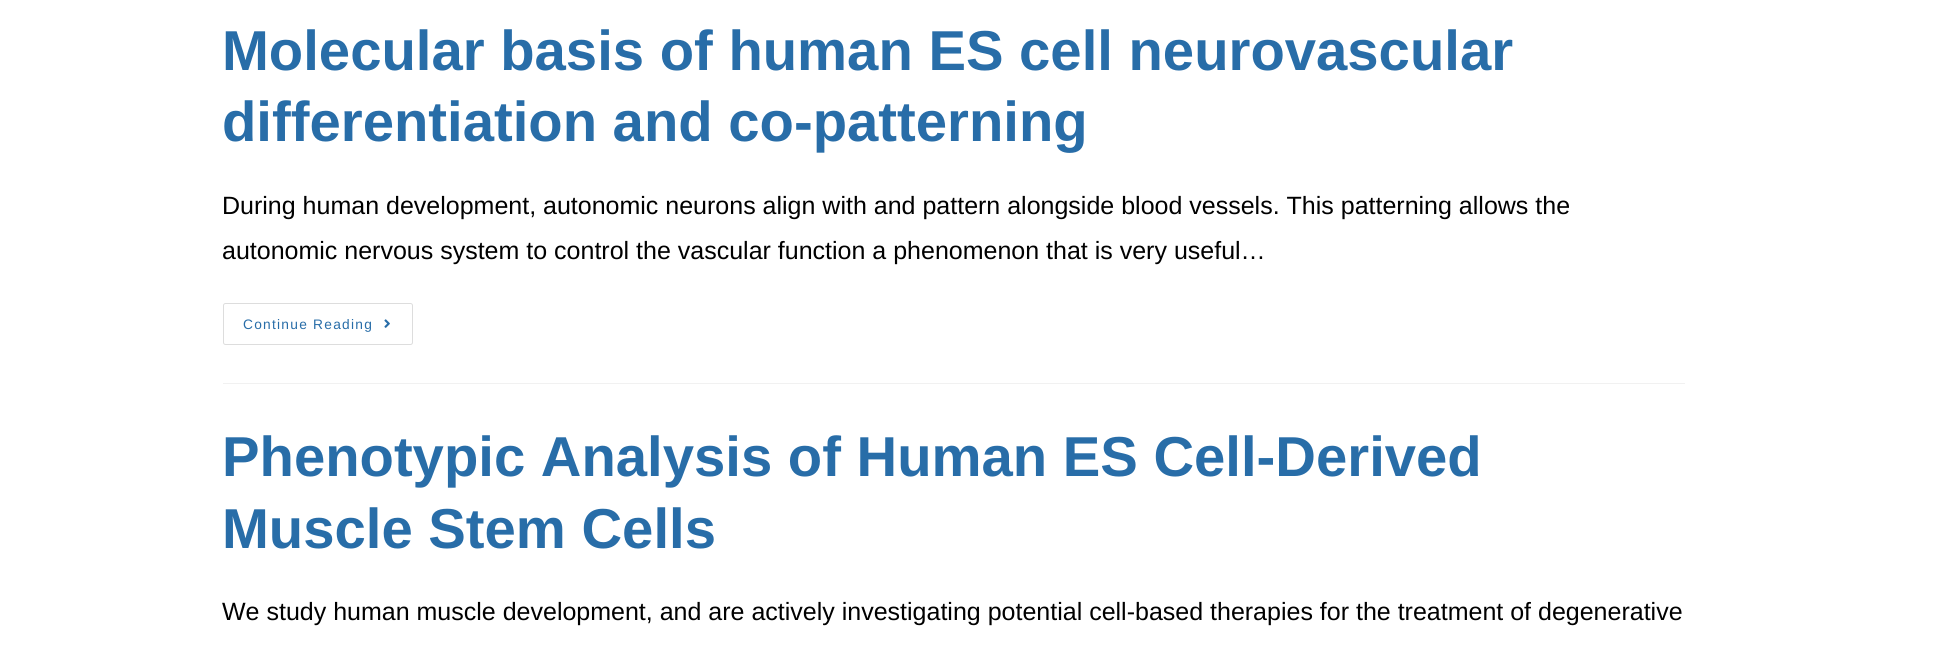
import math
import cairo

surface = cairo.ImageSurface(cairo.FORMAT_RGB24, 1943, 660)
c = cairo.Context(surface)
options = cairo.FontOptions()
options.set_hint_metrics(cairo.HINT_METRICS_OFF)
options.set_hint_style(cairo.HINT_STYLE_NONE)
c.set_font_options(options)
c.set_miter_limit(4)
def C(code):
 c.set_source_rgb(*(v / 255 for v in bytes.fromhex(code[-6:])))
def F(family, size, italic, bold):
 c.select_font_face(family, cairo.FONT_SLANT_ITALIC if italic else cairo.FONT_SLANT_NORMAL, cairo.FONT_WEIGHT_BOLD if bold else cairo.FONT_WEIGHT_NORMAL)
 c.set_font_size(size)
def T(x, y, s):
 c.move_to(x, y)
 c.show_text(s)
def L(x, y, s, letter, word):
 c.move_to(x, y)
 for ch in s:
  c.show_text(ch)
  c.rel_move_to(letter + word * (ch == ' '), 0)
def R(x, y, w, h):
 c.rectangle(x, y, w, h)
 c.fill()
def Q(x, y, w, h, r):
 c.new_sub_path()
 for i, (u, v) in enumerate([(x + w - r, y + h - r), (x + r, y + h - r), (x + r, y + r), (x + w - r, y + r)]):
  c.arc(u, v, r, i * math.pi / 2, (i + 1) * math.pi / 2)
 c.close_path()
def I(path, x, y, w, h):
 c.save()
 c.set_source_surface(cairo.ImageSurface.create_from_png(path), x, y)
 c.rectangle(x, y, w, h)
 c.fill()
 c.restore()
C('ffffff')
c.paint()
C('f1f1f1')
R(223,383,1462,1)
F('Liberation Sans',56.25,0,1)
C('286da8')
T(222,70,'Molecular basis of human ES cell neurovascular')
T(222,141,'differentiation and co-patterning')
F('Liberation Sans',25,0,0)
C('000000')
T(222,214,'During human development, autonomic neurons align with and pattern alongside blood vessels. This patterning allows the')
T(222,259,'autonomic nervous system to control the vascular function a phenomenon that is very useful…')
Q(223.5,303.5,189,41,2)
C('dddddd')
c.set_line_width(1)
c.stroke()
F('Liberation Sans',13.75,0,0)
C('286da8')
L(243,329,'Continue Reading',1.25,0)
I('1.png',384,319,6,9)
F('Liberation Sans',56.25,0,1)
T(222,476,'Phenotypic Analysis of Human ES Cell-Derived')
T(222,548,'Muscle Stem Cells')
F('Liberation Sans',25,0,0)
C('000000')
T(222,620,'We study human muscle development, and are actively investigating potential cell-based therapies for the treatment of degenerative')
surface.write_to_png('o.png')
